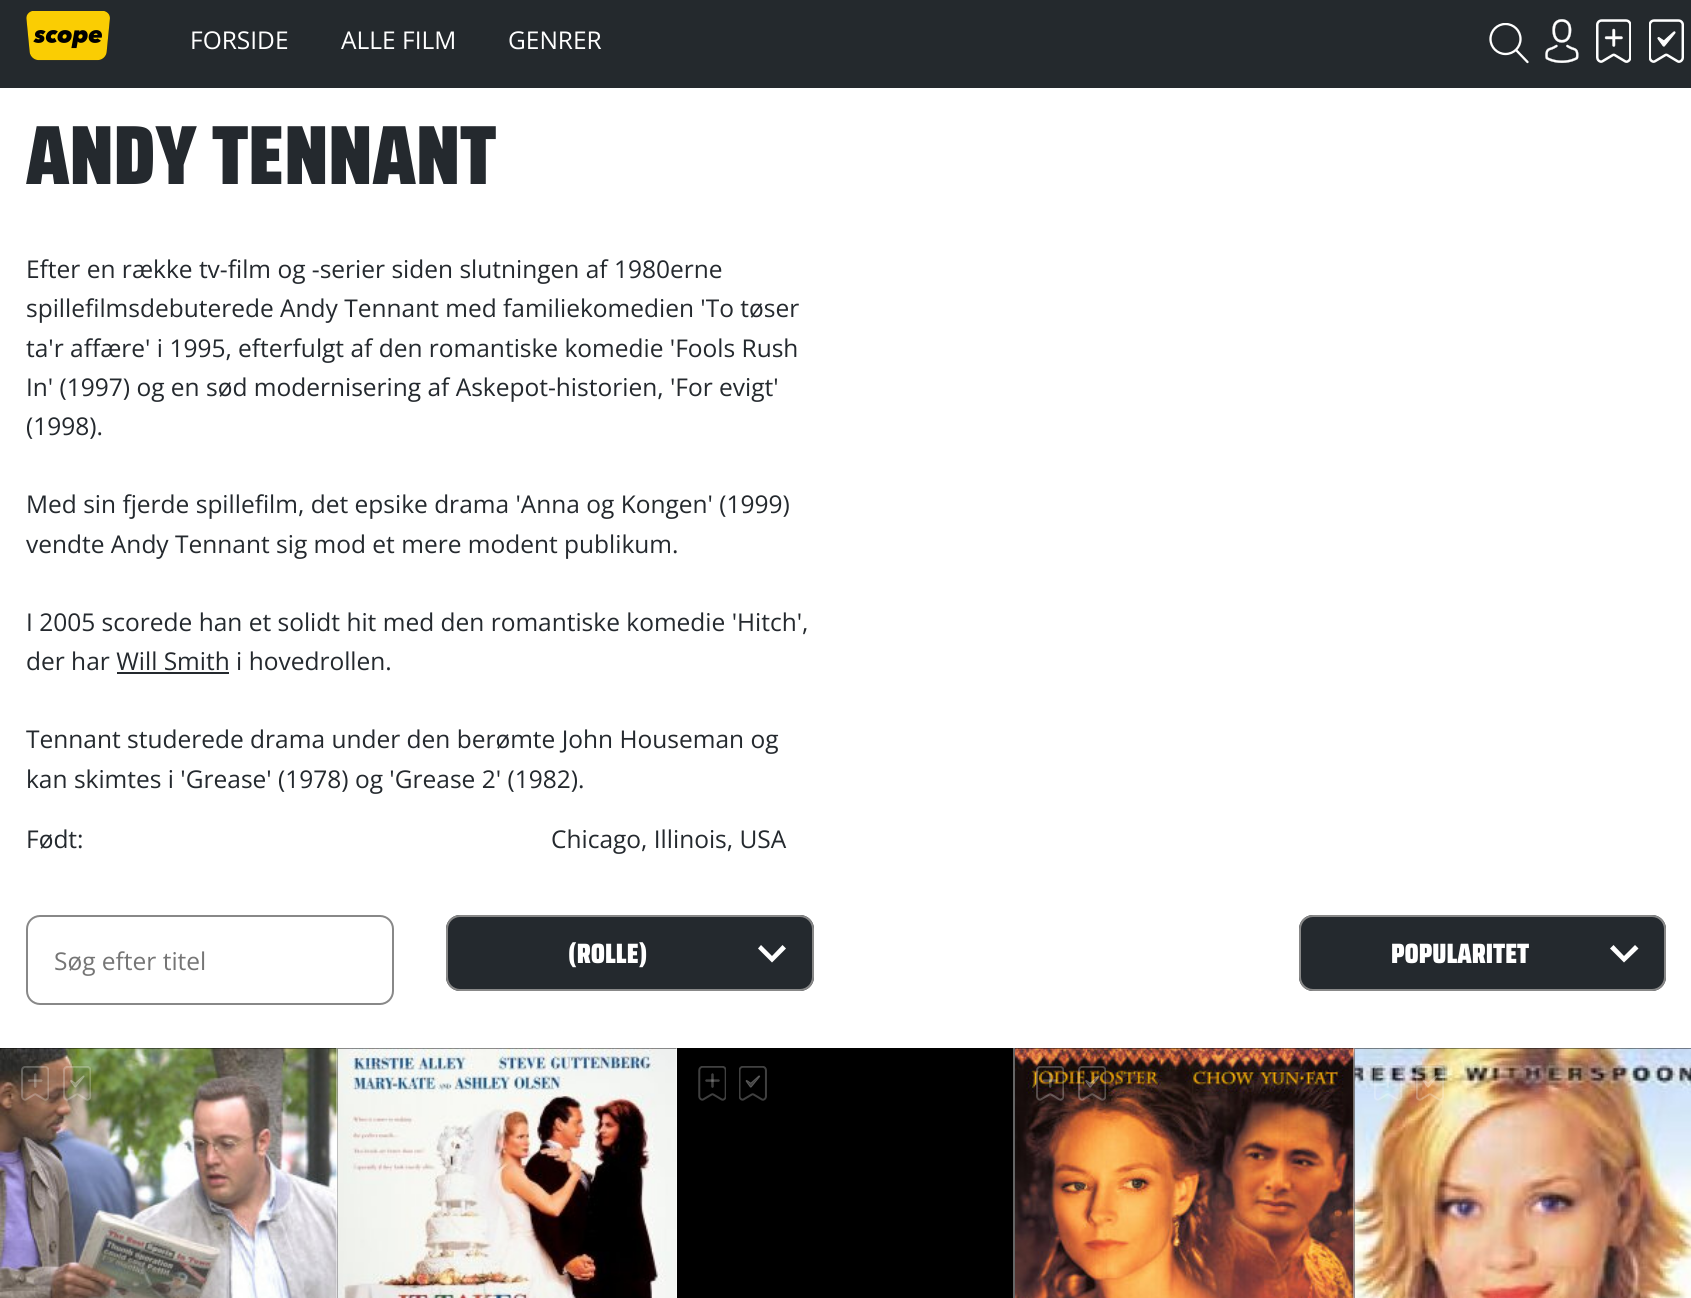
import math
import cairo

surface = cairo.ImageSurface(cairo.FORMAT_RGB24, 1691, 1298)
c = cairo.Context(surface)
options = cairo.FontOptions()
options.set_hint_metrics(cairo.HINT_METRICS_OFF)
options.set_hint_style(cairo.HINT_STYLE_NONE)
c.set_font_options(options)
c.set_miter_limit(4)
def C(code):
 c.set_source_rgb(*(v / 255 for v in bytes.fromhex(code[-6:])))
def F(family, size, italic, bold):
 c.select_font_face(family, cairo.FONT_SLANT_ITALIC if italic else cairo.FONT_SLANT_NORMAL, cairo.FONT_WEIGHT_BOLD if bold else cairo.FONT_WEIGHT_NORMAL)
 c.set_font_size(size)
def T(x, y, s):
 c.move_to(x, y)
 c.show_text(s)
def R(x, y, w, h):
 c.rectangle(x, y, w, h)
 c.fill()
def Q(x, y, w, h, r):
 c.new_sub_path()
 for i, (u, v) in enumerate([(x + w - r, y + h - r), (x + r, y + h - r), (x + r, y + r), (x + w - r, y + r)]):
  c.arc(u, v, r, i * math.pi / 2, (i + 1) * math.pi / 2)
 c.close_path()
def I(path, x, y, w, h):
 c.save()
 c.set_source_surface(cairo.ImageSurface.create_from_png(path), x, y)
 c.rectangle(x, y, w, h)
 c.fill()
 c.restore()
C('ffffff')
c.paint()
C('24292d')
R(0,0,1691,88)
I('1.png',26,11,84,50)
F('Open Sans',24.5,0,0)
C('ffffff')
T(190,49,'FORSIDE')
T(341,49,'ALLE FILM')
T(508,49,'GENRER')
c.save()
c.rectangle(1489,23,41,40)
c.clip()
c.arc(1505.5,39,15,0,2 * math.pi)
c.set_line_width(2.3)
c.stroke()
c.restore()
c.new_path()
c.move_to(1516,50)
c.line_to(1527.5,62)
c.set_line_width(2.3)
c.set_line_cap(cairo.LINE_CAP_ROUND)
c.stroke()
I('2.png',1545,19,34,44)
I('3.png',1596,19,35,44)
I('4.png',1649,19,35,44)
F('Saira Condensed Black',84,0,0)
C('24292e')
T(26,184,'ANDY TENNANT')
F('Open Sans',24.5,0,0)
T(26,278,'Efter en række tv-film og -serier siden slutningen af 1980erne')
T(26,317,'spillefilmsdebuterede Andy Tennant med familiekomedien \'To tøser')
T(26,357,'ta\'r affære\' i 1995, efterfulgt af den romantiske komedie \'Fools Rush')
T(26,396,'In\' (1997) og en sød modernisering af Askepot-historien, \'For evigt\'')
T(26,435,'(1998).')
T(26,513,'Med sin fjerde spillefilm, det epsike drama \'Anna og Kongen\' (1999)')
T(26,553,'vendte Andy Tennant sig mod et mere modent publikum.')
T(26,631,'I 2005 scorede han et solidt hit med den romantiske komedie \'Hitch\',')
T(26,670,'der har Will Smith i hovedrollen.')
R(117,672,112,2)
T(26,748,'Tennant studerede drama under den berømte John Houseman og')
T(26,788,'kan skimtes i \'Grease\' (1978) og \'Grease 2\' (1982).')
T(26,848,'Født:')
T(551,848,'Chicago, Illinois, USA')
Q(27,916,366,88,13)
C('888888')
c.set_line_width(2)
c.set_line_cap(cairo.LINE_CAP_BUTT)
c.stroke()
C('757575')
T(54,970,'Søg efter titel')
C('24292e')
Q(446,915,368,76,14)
c.fill()
C('ffffff')
c.new_path()
c.move_to(761,945)
c.line_to(772,956)
c.line_to(782.5,945)
c.line_to(786,948.5)
c.line_to(772,962.5)
c.line_to(758,948.5)
c.close_path()
c.fill()
Q(447,916,366,74,13)
C('888888')
c.stroke()
F('Saira Condensed Black',28,0,0)
C('ffffff')
T(568,963,'(ROLLE)')
C('24292e')
Q(1299,915,367,76,14)
c.fill()
C('ffffff')
c.new_path()
c.move_to(1613.5,945)
c.line_to(1624,956)
c.line_to(1635,945)
c.line_to(1638.5,948.5)
c.line_to(1624,962.5)
c.line_to(1610,948.5)
c.close_path()
c.fill()
Q(1300,916,365,74,13)
C('888888')
c.stroke()
C('ffffff')
T(1391,963,'POPULARITET')
C('000000')
R(0,1048,338,250)
I('5.png',0,1048,338,250)
c.set_source_rgba(1,1,1,0.4)
R(336,1048,2,250)
I('6.png',21,1066,28,35)
I('7.png',63,1066,28,35)
C('000000')
R(338,1048,339,1)
I('8.png',337,1048,340,250)
c.set_source_rgba(1,1,1,0.4)
R(676,1048,1,250)
I('9.png',359,1066,29,25)
I('10.png',401,1066,28,26)
C('000000')
R(677,1048,336,250)
C('666666')
R(1013,1048,2,250)
I('11.png',698,1066,28,35)
I('12.png',739,1066,28,35)
C('000000')
R(1015,1048,340,250)
I('13.png',1015,1048,340,250)
c.set_source_rgba(1,1,1,0.4)
R(1353,1048,2,250)
I('14.png',1036,1066,28,35)
I('15.png',1078,1066,28,35)
C('000000')
R(1355,1048,336,1)
I('16.png',1354,1048,337,250)
I('17.png',1374,1066,29,35)
I('18.png',1416,1066,28,35)
surface.write_to_png('o.png')
